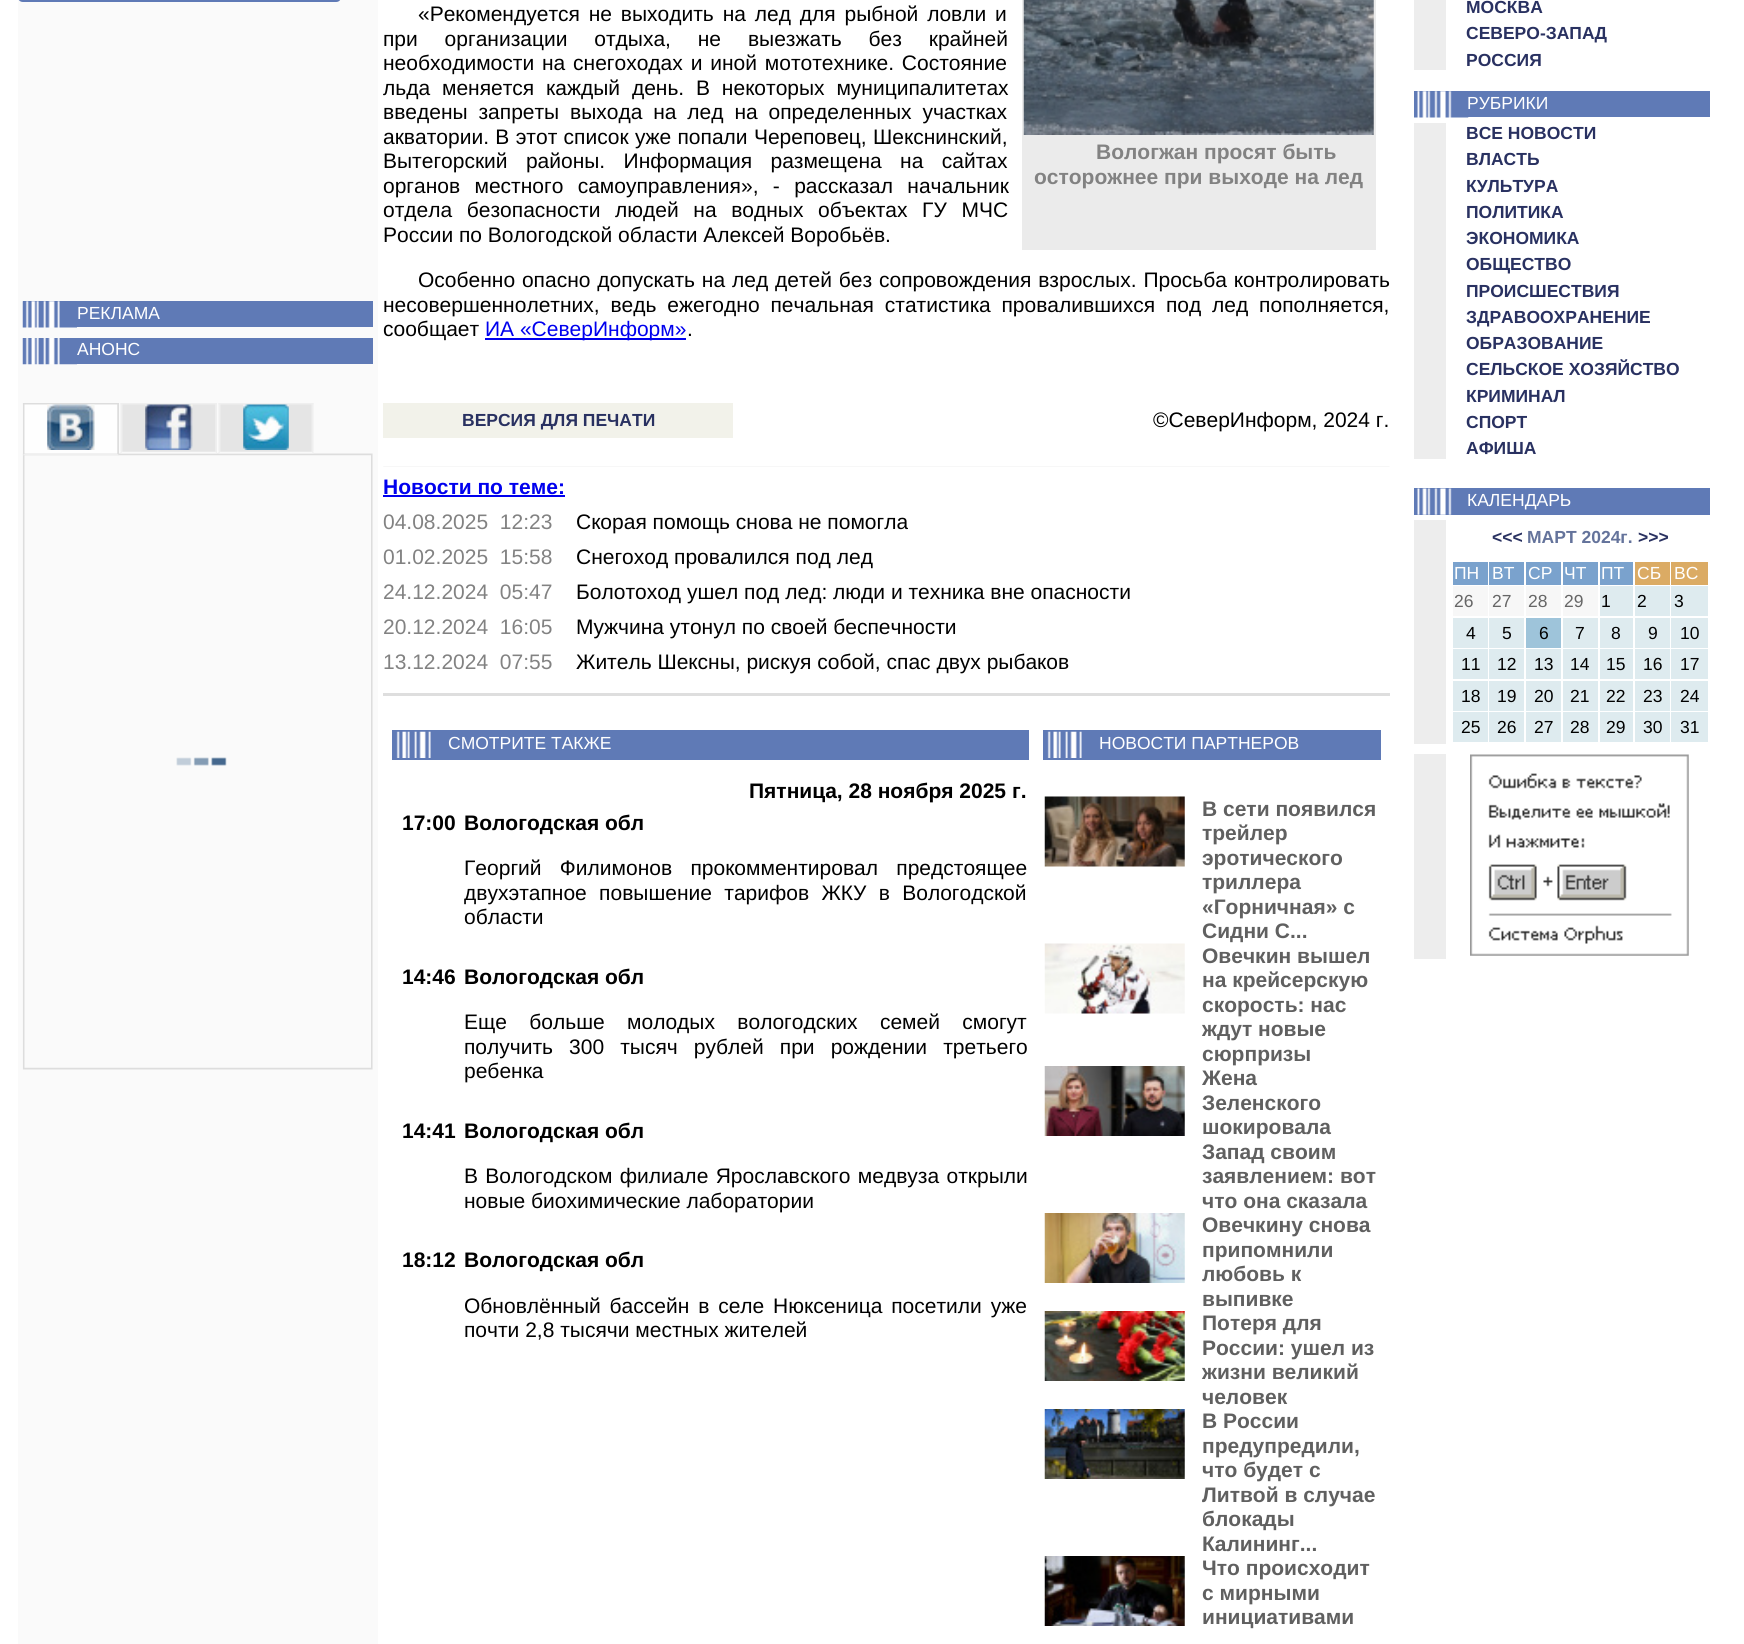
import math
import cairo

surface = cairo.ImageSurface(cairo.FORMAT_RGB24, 1744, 1644)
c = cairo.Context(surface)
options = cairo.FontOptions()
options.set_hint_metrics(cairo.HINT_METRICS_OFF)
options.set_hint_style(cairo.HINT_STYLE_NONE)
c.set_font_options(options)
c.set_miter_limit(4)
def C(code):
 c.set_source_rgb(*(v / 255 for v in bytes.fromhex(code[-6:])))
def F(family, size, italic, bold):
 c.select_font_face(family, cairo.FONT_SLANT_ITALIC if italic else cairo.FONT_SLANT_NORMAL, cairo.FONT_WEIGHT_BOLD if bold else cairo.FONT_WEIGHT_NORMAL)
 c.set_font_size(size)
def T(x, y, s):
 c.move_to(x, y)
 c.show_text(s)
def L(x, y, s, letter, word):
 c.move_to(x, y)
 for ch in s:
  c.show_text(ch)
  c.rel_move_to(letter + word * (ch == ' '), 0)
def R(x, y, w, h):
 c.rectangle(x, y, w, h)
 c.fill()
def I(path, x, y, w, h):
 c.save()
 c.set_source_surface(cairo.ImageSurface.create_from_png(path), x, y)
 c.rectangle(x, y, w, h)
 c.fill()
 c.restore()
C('ffffff')
c.paint()
C('fafafa')
R(18,0,360,1644)
C('5f7ab6')
c.new_path()
c.move_to(18,-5)
c.line_to(341,-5)
c.line_to(341,-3)
c.curve_to(341,0,339,2,336,2)
c.line_to(23,2)
c.curve_to(20,2,18,0,18,-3)
c.close_path()
c.fill()
R(23,301,350,26)
I('1.png',22,301,55,27)
F('Liberation Sans',17.5,0,0)
C('ffffff')
T(77,319,'РЕКЛАМА')
C('5f7ab6')
R(77,338,296,26)
I('2.png',22,338,55,27)
C('ffffff')
T(77,355,'АНОНС')
I('3.png',22,403,351,667)
F('Liberation Sans',21,0,0)
C('000000')
L(418,21,'«Рекомендуется не выходить на лед для рыбной ловли и',0,3)
L(383,46,'при организации отдыха, не выезжать без крайней',0,21)
L(383,70,'необходимости на снегоходах и иной мототехнике. Состояние',0,2)
L(383,95,'льда меняется каждый день. В некоторых муниципалитетах',0,6)
L(383,119,'введены запреты выхода на лед на определенных участках',0,5)
L(383,144,'акватории. В этот список уже попали Череповец, Шекснинский,',0,.5)
L(383,168,'Вытегорский районы. Информация размещена на сайтах',0,12.5)
L(383,193,'органов местного самоуправления», - рассказал начальник',0,8.5)
L(383,217,'отдела безопасности людей на водных объектах ГУ МЧС',0,8.75)
T(383,242,'России по Вологодской области Алексей Воробьёв.')
C('ebebeb')
R(1022,0,354,250)
I('4.png',1023,0,351,135)
F('Liberation Sans',21,0,1)
C('828282')
T(1096,159,'Вологжан просят быть')
T(1034,184,'осторожнее при выходе на лед')
F('Liberation Sans',21,0,0)
C('000000')
L(418,287,'Особенно опасно допускать на лед детей без сопровождения взрослых. Просьба контролировать',0,1)
L(383,312,'несовершеннолетних, ведь ежегодно печальная статистика провалившихся под лед пополняется,',0,5)
T(383,336,'сообщает')
C('0000ee')
R(485,338,201,2)
T(485,336,'ИА «СеверИнформ»')
C('000000')
T(687,336,'.')
C('f2f2ea')
R(383,403,350,35)
F('Liberation Sans',17.5,0,1)
C('293161')
T(462,426,'ВЕРСИЯ ДЛЯ ПЕЧАТИ')
F('Liberation Sans',21,0,0)
C('000000')
T(1153,427,'©СеверИнформ, 2024 г.')
I('5.png',383,466,1007,1)
F('Liberation Sans',21,0,1)
C('0000ee')
T(383,494,'Новости по теме:')
R(383,495,182,2)
F('Liberation Sans',21,0,0)
C('828282')
T(383,529,'04.08.2025  12:23')
C('000000')
T(576,529,'Скорая помощь снова не помогла')
C('828282')
T(383,564,'01.02.2025  15:58')
C('000000')
T(576,564,'Снегоход провалился под лед')
C('828282')
T(383,599,'24.12.2024  05:47')
C('000000')
T(576,599,'Болотоход ушел под лед: люди и техника вне опасности')
C('828282')
T(383,634,'20.12.2024  16:05')
C('000000')
T(576,634,'Мужчина утонул по своей беспечности')
C('828282')
T(383,669,'13.12.2024  07:55')
C('000000')
T(576,669,'Житель Шексны, рискуя собой, спас двух рыбаков')
C('dedede')
R(383,693,1007,3)
C('5f7ab6')
R(392,730,637,30)
I('6.png',396,731,35,27)
F('Liberation Sans',17.5,0,0)
C('ffffff')
T(448,749,'СМОТРИТЕ ТАКЖЕ')
F('Liberation Sans',21,0,1)
C('000000')
T(749,798,'Пятница, 28 ноября 2025 г.')
T(402,830,'17:00')
T(464,830,'Вологодская обл')
F('Liberation Sans',21,0,0)
L(464,875,'Георгий Филимонов прокомментировал предстоящее',0,12.5)
L(464,900,'двухэтапное повышение тарифов ЖКУ в Вологодской',0,6.5)
T(464,924,'области')
F('Liberation Sans',21,0,1)
T(402,984,'14:46')
T(464,984,'Вологодская обл')
F('Liberation Sans',21,0,0)
L(464,1029,'Еще больше молодых вологодских семей смогут',0,16.5)
L(464,1054,'получить 300 тысяч рублей при рождении третьего',0,10.25)
T(464,1078,'ребенка')
F('Liberation Sans',21,0,1)
T(402,1138,'14:41')
T(464,1138,'Вологодская обл')
F('Liberation Sans',21,0,0)
L(464,1183,'В Вологодском филиале Ярославского медвуза открыли',0,1.5)
T(464,1208,'новые биохимические лаборатории')
F('Liberation Sans',21,0,1)
T(402,1267,'18:12')
T(464,1267,'Вологодская обл')
F('Liberation Sans',21,0,0)
L(464,1313,'Обновлённый бассейн в селе Нюксеница посетили уже',0,3)
T(464,1337,'почти 2,8 тысячи местных жителей')
C('5f7ab6')
R(1043,730,338,30)
I('6.png',1047,731,35,27)
F('Liberation Sans',17.5,0,0)
C('ffffff')
T(1099,749,'НОВОСТИ ПАРТНЕРОВ')
I('7.png',1044,796,141,71)
F('Liberation Sans',21,0,1)
C('606060')
T(1202,816,'В сети появился')
T(1202,840,'трейлер')
T(1202,865,'эротического')
T(1202,889,'триллера')
T(1202,914,'«Горничная» с')
T(1202,938,'Сидни С...')
I('8.png',1044,943,141,71)
T(1202,963,'Овечкин вышел')
T(1202,987,'на крейсерскую')
T(1202,1012,'скорость: нас')
T(1202,1036,'ждут новые')
T(1202,1061,'сюрпризы')
I('9.png',1044,1066,141,70)
T(1202,1085,'Жена')
T(1202,1110,'Зеленского')
T(1202,1134,'шокировала')
T(1202,1159,'Запад своим')
T(1202,1183,'заявлением: вот')
T(1202,1208,'что она сказала')
I('10.png',1044,1213,141,70)
T(1202,1232,'Овечкину снова')
T(1202,1257,'припомнили')
T(1202,1281,'любовь к')
T(1202,1306,'выпивке')
I('11.png',1044,1311,141,70)
T(1202,1330,'Потеря для')
T(1202,1355,'России: ушел из')
T(1202,1379,'жизни великий')
T(1202,1404,'человек')
I('12.png',1044,1409,141,70)
T(1202,1428,'В России')
T(1202,1453,'предупредили,')
T(1202,1477,'что будет с')
T(1202,1502,'Литвой в случае')
T(1202,1526,'блокады')
T(1202,1551,'Калининг...')
I('13.png',1044,1556,141,70)
T(1202,1575,'Что происходит')
T(1202,1600,'с мирными')
T(1202,1624,'инициативами')
C('ededed')
R(1414,0,32,70)
F('Liberation Sans',17.5,0,1)
C('293161')
T(1466,13,'МОСКВА')
T(1466,39,'СЕВЕРО-ЗАПАД')
T(1466,66,'РОССИЯ')
C('5f7ab6')
R(1414,91,296,26)
I('14.png',1414,91,55,27)
F('Liberation Sans',17.5,0,0)
C('ffffff')
T(1467,109,'РУБРИКИ')
C('ededed')
R(1414,123,32,336)
F('Liberation Sans',17.5,0,1)
C('293161')
T(1466,139,'ВСЕ НОВОСТИ')
T(1466,165,'ВЛАСТЬ')
T(1466,192,'КУЛЬТУРА')
T(1466,218,'ПОЛИТИКА')
T(1466,244,'ЭКОНОМИКА')
T(1466,270,'ОБЩЕСТВО')
T(1466,297,'ПРОИСШЕСТВИЯ')
T(1466,323,'ЗДРАВООХРАНЕНИЕ')
T(1466,349,'ОБРАЗОВАНИЕ')
T(1466,375,'СЕЛЬСКОЕ ХОЗЯЙСТВО')
T(1466,402,'КРИМИНАЛ')
T(1466,428,'СПОРТ')
T(1466,454,'АФИША')
C('5f7ab6')
R(1414,488,296,27)
I('15.png',1417,488,35,27)
F('Liberation Sans',17.5,0,0)
C('ffffff')
T(1467,506,'КАЛЕНДАРЬ')
C('ededed')
R(1414,520,32,224)
F('Liberation Sans',17.5,0,1)
C('293161')
T(1492,543,'<<<')
C('64739b')
T(1527,543,'МАРТ 2024г.')
C('293161')
T(1638,543,'>>>')
C('7aa2cd')
R(1453,562,35,23)
F('Liberation Sans',17.5,0,0)
C('ffffff')
T(1454,579,'ПН')
C('7aa2cd')
R(1489,562,35,23)
C('ffffff')
T(1492,579,'ВТ')
C('7aa2cd')
R(1526,562,35,23)
C('ffffff')
T(1528,579,'СР')
C('7aa2cd')
R(1563,562,35,23)
C('ffffff')
T(1564,579,'ЧТ')
C('7aa2cd')
R(1600,562,33,23)
C('ffffff')
T(1601,579,'ПТ')
C('dbab64')
R(1635,562,35,23)
C('ffffff')
T(1637,579,'СБ')
C('dbab64')
R(1671,562,37,23)
C('ffffff')
T(1674,579,'ВС')
C('f7f7f7')
R(1453,586,35,30)
C('666666')
T(1454,607,'26')
C('f7f7f7')
R(1489,586,35,30)
C('666666')
T(1492,607,'27')
C('f7f7f7')
R(1526,586,35,30)
C('666666')
T(1528,607,'28')
C('f7f7f7')
R(1563,586,35,30)
C('666666')
T(1564,607,'29')
C('deebef')
R(1600,586,33,30)
C('000000')
T(1601,607,'1')
C('deebef')
R(1635,586,35,30)
C('000000')
T(1637,607,'2')
C('deebef')
R(1671,586,37,30)
C('000000')
T(1674,607,'3')
C('deebef')
R(1453,618,35,30)
C('000000')
T(1466,639,'4')
C('deebef')
R(1489,618,35,30)
C('000000')
T(1502,639,'5')
C('9ec4da')
R(1526,618,35,30)
C('000000')
T(1539,639,'6')
C('deebef')
R(1563,618,35,30)
C('000000')
T(1575,639,'7')
C('deebef')
R(1600,618,33,30)
C('000000')
T(1611,639,'8')
C('deebef')
R(1635,618,35,30)
C('000000')
T(1648,639,'9')
C('deebef')
R(1671,618,37,30)
C('000000')
T(1680,639,'10')
C('deebef')
R(1453,649,35,30)
C('000000')
T(1461,670,'11')
C('deebef')
R(1489,649,35,30)
C('000000')
T(1497,670,'12')
C('deebef')
R(1526,649,35,30)
C('000000')
T(1534,670,'13')
C('deebef')
R(1563,649,35,30)
C('000000')
T(1570,670,'14')
C('deebef')
R(1600,649,33,30)
C('000000')
T(1606,670,'15')
C('deebef')
R(1635,649,35,30)
C('000000')
T(1643,670,'16')
C('deebef')
R(1671,649,37,30)
C('000000')
T(1680,670,'17')
C('deebef')
R(1453,681,35,30)
C('000000')
T(1461,702,'18')
C('deebef')
R(1489,681,35,30)
C('000000')
T(1497,702,'19')
C('deebef')
R(1526,681,35,30)
C('000000')
T(1534,702,'20')
C('deebef')
R(1563,681,35,30)
C('000000')
T(1570,702,'21')
C('deebef')
R(1600,681,33,30)
C('000000')
T(1606,702,'22')
C('deebef')
R(1635,681,35,30)
C('000000')
T(1643,702,'23')
C('deebef')
R(1671,681,37,30)
C('000000')
T(1680,702,'24')
C('deebef')
R(1453,712,35,30)
C('000000')
T(1461,733,'25')
C('deebef')
R(1489,712,35,30)
C('000000')
T(1497,733,'26')
C('deebef')
R(1526,712,35,30)
C('000000')
T(1534,733,'27')
C('deebef')
R(1563,712,35,30)
C('000000')
T(1570,733,'28')
C('deebef')
R(1600,712,33,30)
C('000000')
T(1606,733,'29')
C('deebef')
R(1635,712,35,30)
C('000000')
T(1643,733,'30')
C('deebef')
R(1671,712,37,30)
C('000000')
T(1680,733,'31')
C('ededed')
R(1414,754,32,205)
I('16.png',1470,754,219,202)
surface.write_to_png('o.png')
